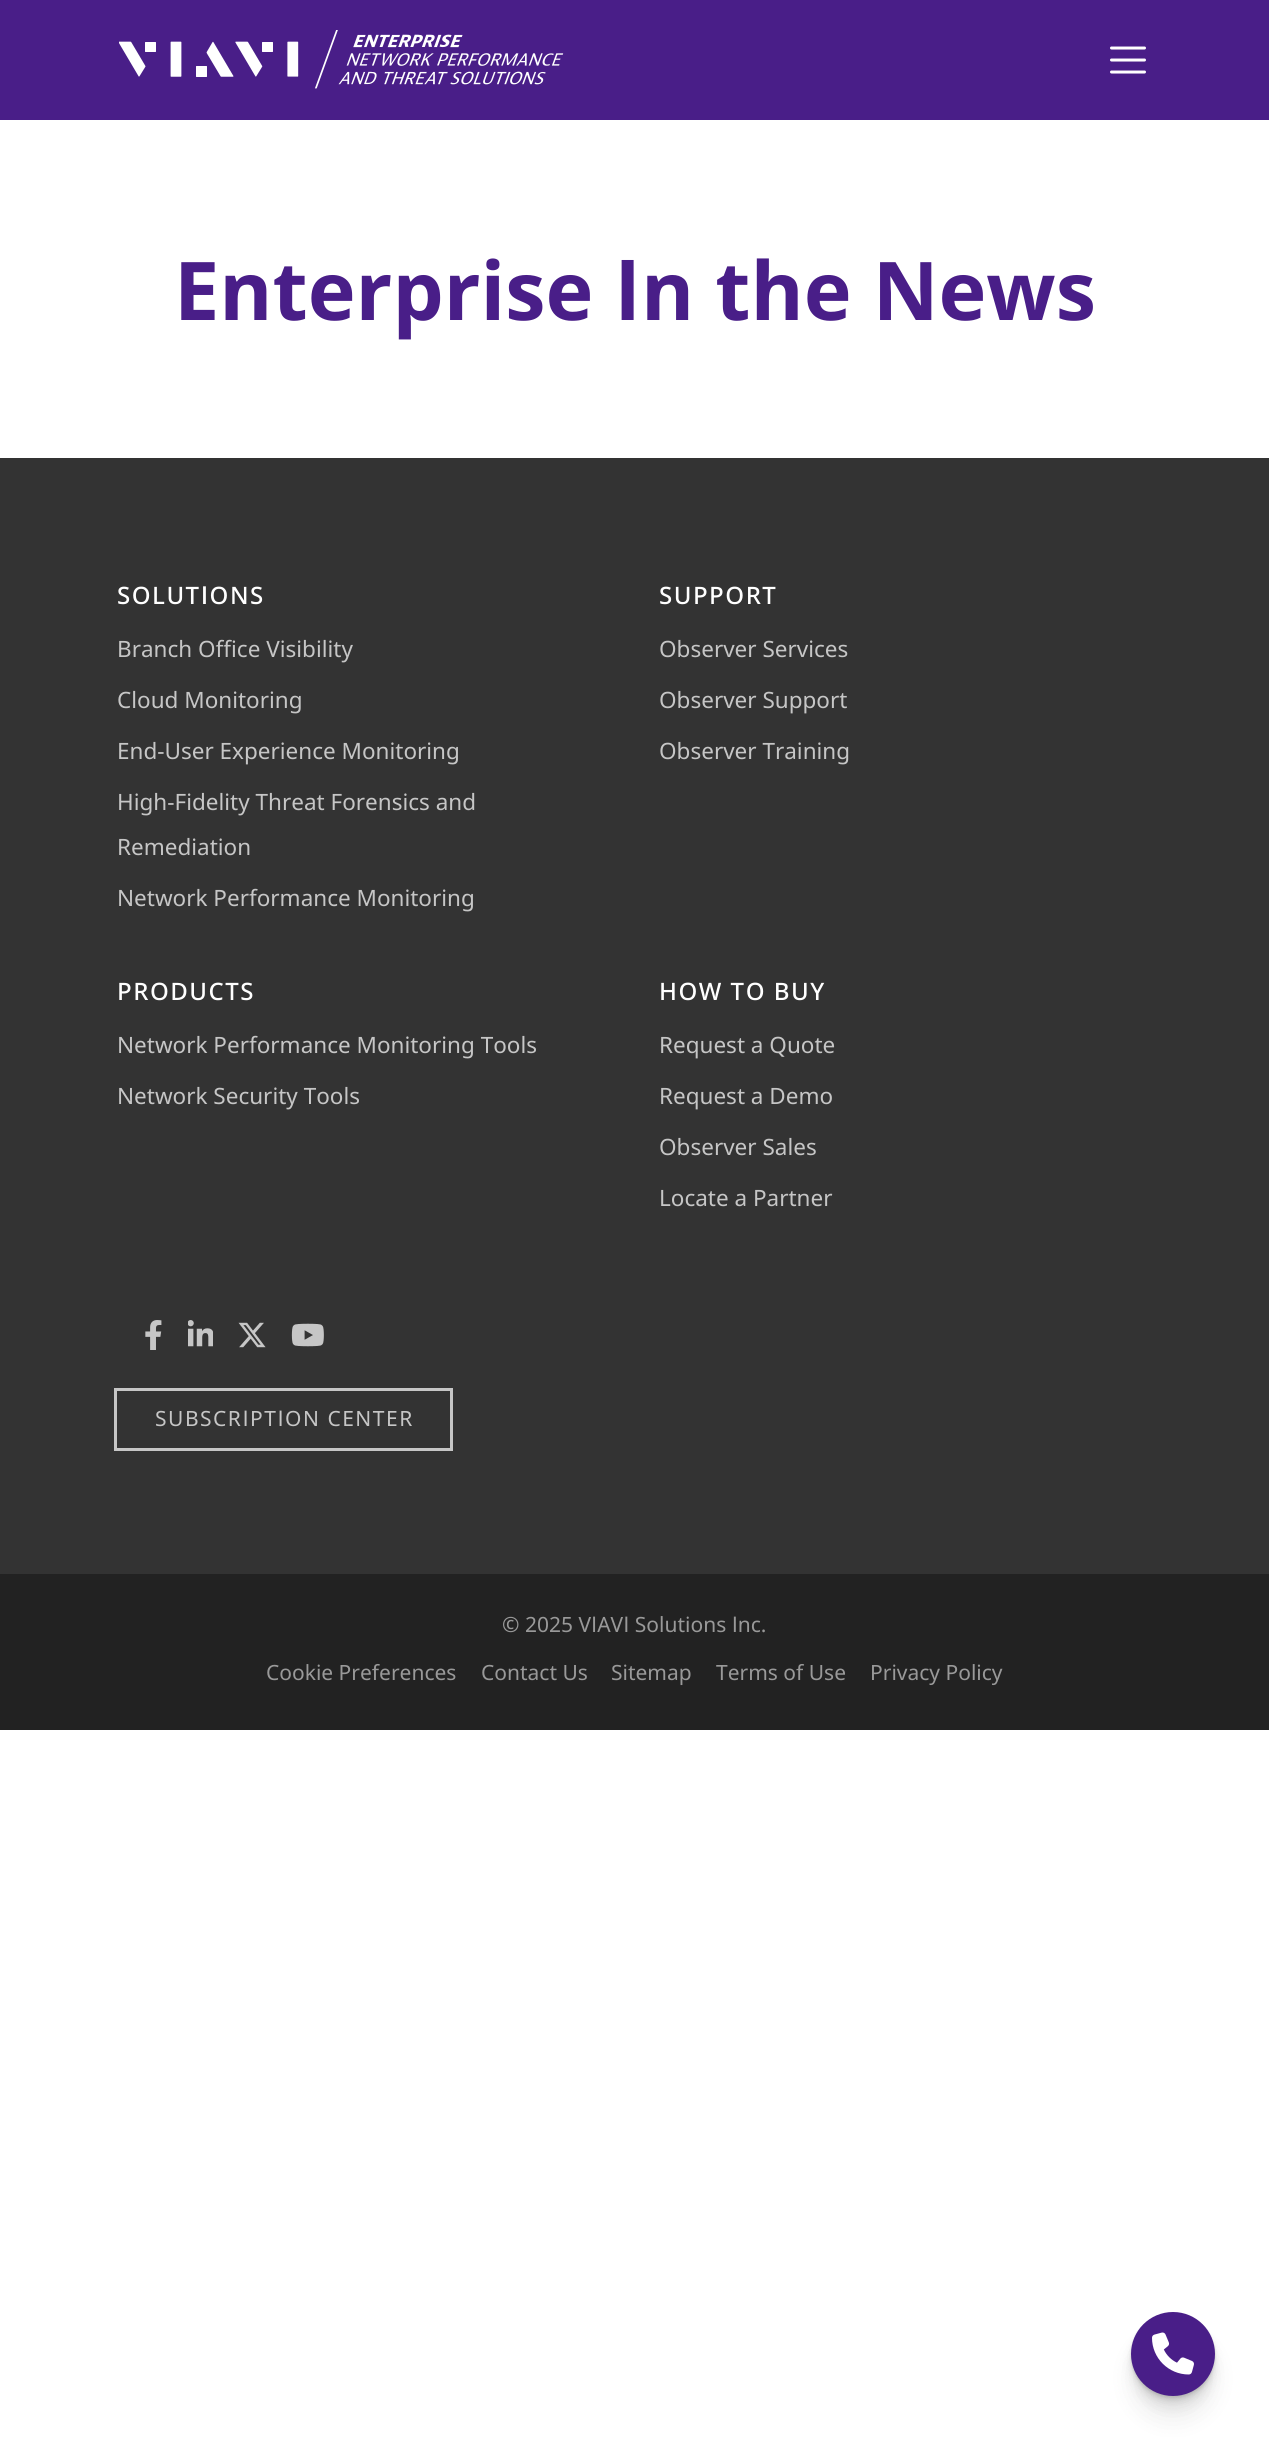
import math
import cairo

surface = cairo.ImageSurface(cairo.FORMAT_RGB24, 1269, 2437)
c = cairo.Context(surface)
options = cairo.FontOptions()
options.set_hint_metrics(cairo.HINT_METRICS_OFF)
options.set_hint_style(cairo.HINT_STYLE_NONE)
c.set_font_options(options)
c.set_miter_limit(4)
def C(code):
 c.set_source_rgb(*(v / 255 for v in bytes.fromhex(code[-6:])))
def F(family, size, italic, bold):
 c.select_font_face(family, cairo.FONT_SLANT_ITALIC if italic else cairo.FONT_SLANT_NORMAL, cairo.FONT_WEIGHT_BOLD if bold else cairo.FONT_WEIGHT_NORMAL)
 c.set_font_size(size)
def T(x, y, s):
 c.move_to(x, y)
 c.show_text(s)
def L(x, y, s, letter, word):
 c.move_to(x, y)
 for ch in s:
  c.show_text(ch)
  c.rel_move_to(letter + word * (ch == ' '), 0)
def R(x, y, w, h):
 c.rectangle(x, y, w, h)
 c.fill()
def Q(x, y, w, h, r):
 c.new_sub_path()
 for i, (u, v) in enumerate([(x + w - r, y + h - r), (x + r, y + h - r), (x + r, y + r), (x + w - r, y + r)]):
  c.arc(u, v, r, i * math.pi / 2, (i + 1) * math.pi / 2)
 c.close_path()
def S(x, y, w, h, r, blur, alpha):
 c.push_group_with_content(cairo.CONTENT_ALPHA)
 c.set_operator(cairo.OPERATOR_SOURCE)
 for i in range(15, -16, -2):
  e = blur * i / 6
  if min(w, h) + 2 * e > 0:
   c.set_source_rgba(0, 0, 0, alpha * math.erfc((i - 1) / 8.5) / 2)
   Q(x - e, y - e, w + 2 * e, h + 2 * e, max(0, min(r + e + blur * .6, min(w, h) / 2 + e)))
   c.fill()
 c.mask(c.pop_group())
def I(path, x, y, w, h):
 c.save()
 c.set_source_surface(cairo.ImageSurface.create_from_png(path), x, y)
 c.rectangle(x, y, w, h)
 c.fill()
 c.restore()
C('ffffff')
c.paint()
C('491e88')
R(0,0,1269,120)
I('1.png',119,30,445,59)
c.new_path()
c.move_to(1111.5,48)
c.line_to(1144.5,48)
c.move_to(1111.5,60)
c.line_to(1144.5,60)
c.move_to(1111.5,72)
c.line_to(1144.5,72)
C('ffffff')
c.set_line_width(3)
c.set_line_cap(cairo.LINE_CAP_ROUND)
c.stroke()
F('Noto Sans',81,0,1)
C('491e88')
T(174,320,'Enterprise In the News')
C('333333')
R(0,458,1269,1116)
F('Noto Sans Medium',24,0,0)
C('ffffff')
L(117,604,'SOLUTIONS',1.5,0)
F('Noto Sans',22.5,0,0)
C('c6c6c6')
T(117,657,'Branch Office Visibility')
T(117,708,'Cloud Monitoring')
T(117,759,'End-User Experience Monitoring')
T(117,810,'High-Fidelity Threat Forensics and')
T(117,855,'Remediation')
T(117,906,'Network Performance Monitoring')
F('Noto Sans Medium',24,0,0)
C('ffffff')
L(659,604,'SUPPORT',1.5,0)
F('Noto Sans',22.5,0,0)
C('c6c6c6')
T(659,657,'Observer Services')
T(659,708,'Observer Support')
T(659,759,'Observer Training')
F('Noto Sans Medium',24,0,0)
C('ffffff')
L(117,1000,'PRODUCTS',1.5,0)
F('Noto Sans',22.5,0,0)
C('c6c6c6')
T(117,1053,'Network Performance Monitoring Tools')
T(117,1104,'Network Security Tools')
F('Noto Sans Medium',24,0,0)
C('ffffff')
L(659,1000,'HOW TO BUY',1.5,0)
F('Noto Sans',22.5,0,0)
C('c6c6c6')
T(659,1053,'Request a Quote')
T(659,1104,'Request a Demo')
T(659,1155,'Observer Sales')
T(659,1206,'Locate a Partner')
I('2.png',145,1320,17,30)
I('3.png',188,1320,25,27)
I('4.png',238,1322,28,26)
I('5.png',291,1323,33,24)
c.rectangle(115.5,1389.5,336,60)
c.set_line_cap(cairo.LINE_CAP_BUTT)
c.stroke()
F('Noto Sans',21,0,0)
L(155,1426,'SUBSCRIPTION CENTER',1.5,0)
C('222222')
R(0,1574,1269,156)
C('999999')
T(502,1632,'© 2025 VIAVI Solutions Inc.')
T(266,1680,'Cookie Preferences')
T(481,1680,'Contact Us')
T(611,1680,'Sitemap')
T(716,1680,'Terms of Use')
T(870,1680,'Privacy Policy')
C('000000')
S(1131,2336,84,84,42,12,.07)
S(1131,2324,84,84,42,6,.07)
S(1131,2318,84,84,42,3,.07)
S(1131,2315,84,84,42,1.5,.07)
S(1131,2313,84,84,42,1,.07)
C('491e88')
c.arc(1173,2354,42,0,2 * math.pi)
c.fill()
I('6.png',1152,2332,42,43)
surface.write_to_png('o.png')
